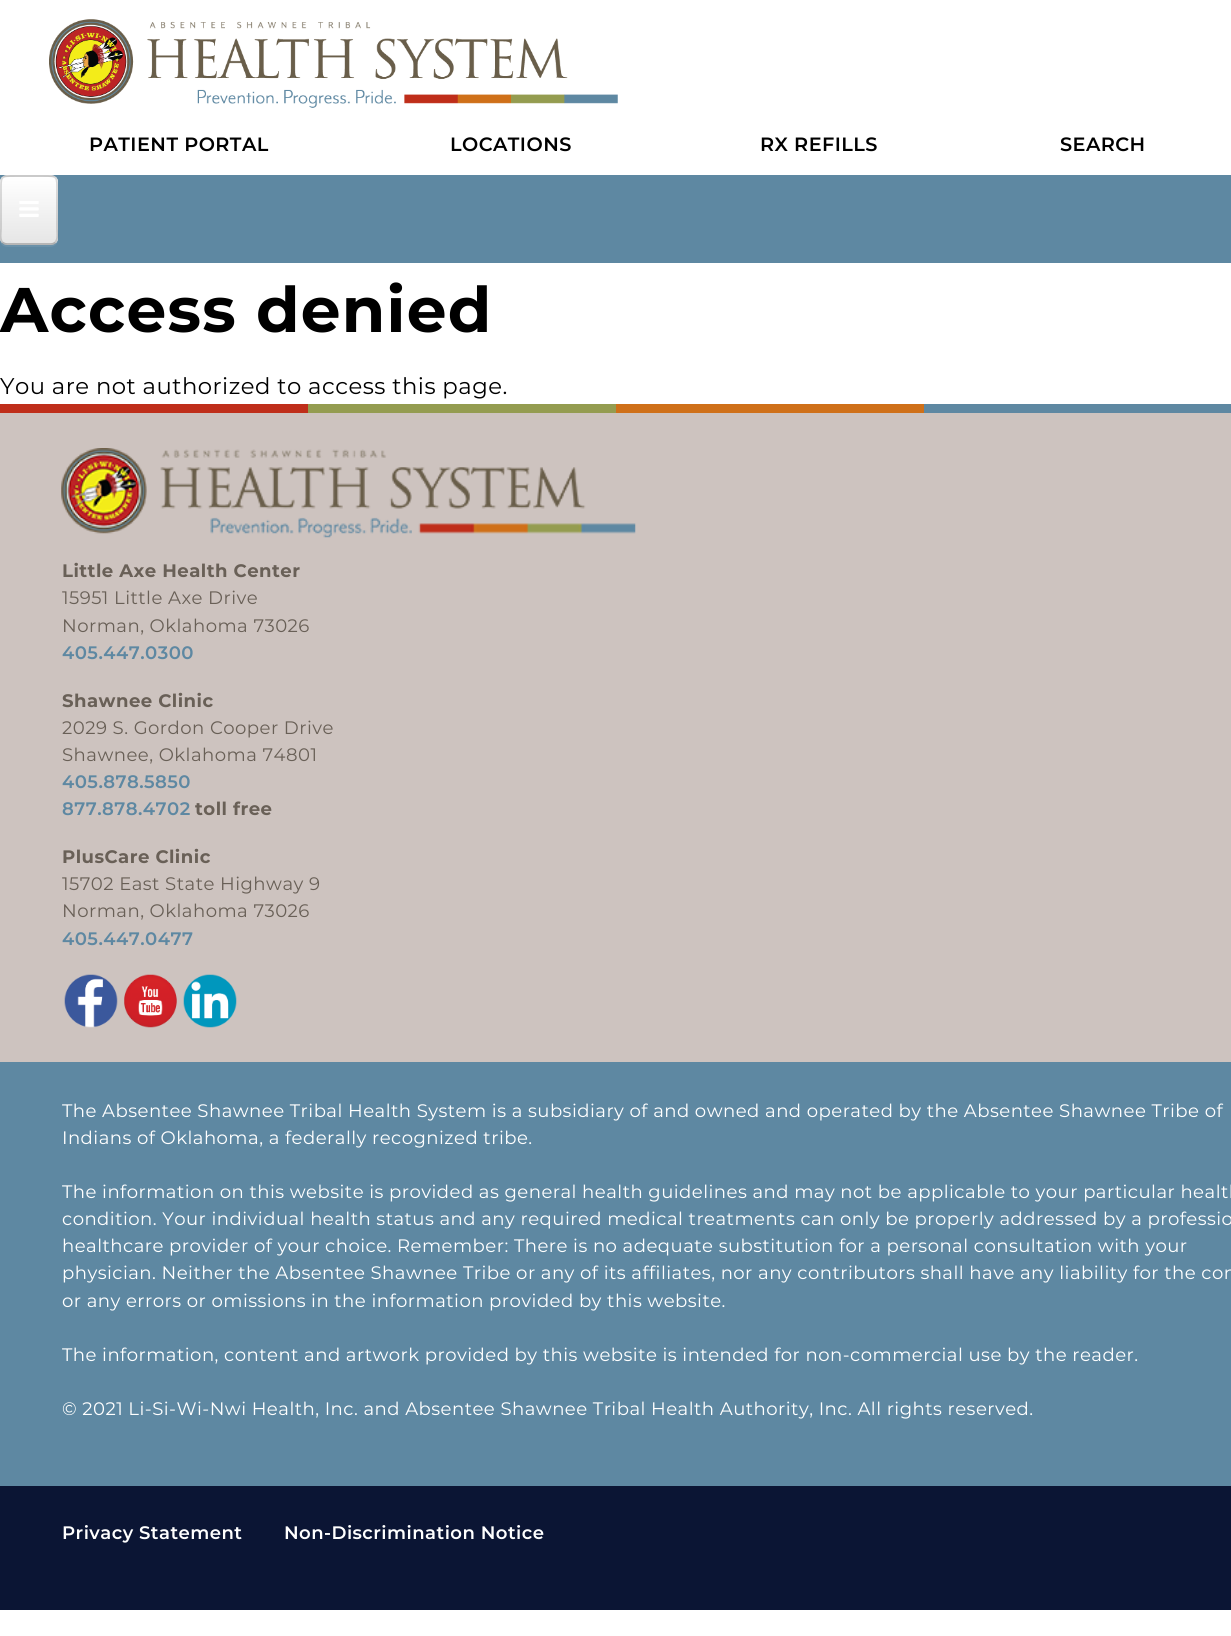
import math
import cairo

surface = cairo.ImageSurface(cairo.FORMAT_RGB24, 1231, 1636)
c = cairo.Context(surface)
options = cairo.FontOptions()
options.set_hint_metrics(cairo.HINT_METRICS_OFF)
options.set_hint_style(cairo.HINT_STYLE_NONE)
c.set_font_options(options)
c.set_miter_limit(4)
def C(code):
 c.set_source_rgb(*(v / 255 for v in bytes.fromhex(code[-6:])))
def F(family, size, italic, bold):
 c.select_font_face(family, cairo.FONT_SLANT_ITALIC if italic else cairo.FONT_SLANT_NORMAL, cairo.FONT_WEIGHT_BOLD if bold else cairo.FONT_WEIGHT_NORMAL)
 c.set_font_size(size)
def L(x, y, s, letter, word):
 c.move_to(x, y)
 for ch in s:
  c.show_text(ch)
  c.rel_move_to(letter + word * (ch == ' '), 0)
def R(x, y, w, h):
 c.rectangle(x, y, w, h)
 c.fill()
def Q(x, y, w, h, r):
 c.new_sub_path()
 for i, (u, v) in enumerate([(x + w - r, y + h - r), (x + r, y + h - r), (x + r, y + r), (x + w - r, y + r)]):
  c.arc(u, v, r, i * math.pi / 2, (i + 1) * math.pi / 2)
 c.close_path()
def I(path, x, y, w, h):
 c.save()
 c.set_source_surface(cairo.ImageSurface.create_from_png(path), x, y)
 c.rectangle(x, y, w, h)
 c.fill()
 c.restore()
C('ffffff')
c.paint()
I('1.png',49,19,569,89)
F('Montserrat SemiBold',19.25,0,0)
C('000000')
L(89,151,'PATIENT PORTAL',.46,0)
L(450,151,'LOCATIONS',.46,0)
L(760,151,'RX REFILLS',.46,0)
L(1060,151,'SEARCH',.46,0)
C('5e88a2')
R(0,175,1231,88)
C('6a91a9')
c.new_path()
c.move_to(0,238)
c.curve_to(0,248,6,247,14,247)
c.line_to(44,247)
c.curve_to(49,247,56,248,58,241)
c.line_to(58,182)
c.line_to(58,238)
c.curve_to(58,242,55,245,51,245)
c.line_to(7,245)
c.curve_to(3,245,0,242,0,238)
c.close_path()
c.fill()
C('e8e8e8')
Q(0,175,58,70,7)
c.fill()
c.save()
Q(0,175,58,70,7)
c.clip()
gradient = cairo.LinearGradient(29,177,29,243)
gradient.add_color_stop_rgba(0,1,1,1,1)
gradient.add_color_stop_rgba(1,0.902,0.902,0.902,1)
c.set_source(gradient)
R(0,177,58,66)
c.restore()
c.new_path()
c.move_to(55,242.5)
c.curve_to(54,243.5,52.5,244,51,244)
c.line_to(7,244)
c.curve_to(5.5,244,4,243.5,2.5,242.5)
c.set_source_rgba(0,0,0,0.25)
c.set_line_width(1.8)
c.stroke()
c.new_path()
c.move_to(2.5,242.5)
c.curve_to(-.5,239,1,232,1,228.5)
c.line_to(1,191.5)
c.curve_to(1,176.5,0,176,14.5,176)
c.line_to(43.5,176)
c.curve_to(58,176,57,176.5,57,191.5)
c.line_to(57,228.5)
c.curve_to(57,232,58.5,239,55,242.5)
c.set_source_rgba(0,0,0,0.15)
c.stroke()
I('2.png',19,201,20,16)
F('Montserrat',63,0,1)
C('000000')
L(0,332,'Access denied',1.25,0)
F('Montserrat',22.75,0,0)
L(0,394,'You are not authorized to access this page.',.46,0)
C('bf2e1a')
R(0,404,308,9)
C('949c50')
R(308,404,308,9)
C('cf7019')
R(616,404,308,9)
C('5e88a2')
R(924,404,307,9)
C('cdc3bf')
R(0,413,1231,649)
I('3.png',61,448,575,90)
F('Montserrat',18.08,0,1)
C('696057')
L(62,577,'Little Axe Health Center',.46,0)
F('Montserrat',18.08,0,0)
L(62,604,'15951 Little Axe Drive',.46,0)
L(62,632,'Norman, Oklahoma 73026',.46,0)
F('Montserrat SemiBold',18.08,0,0)
C('5e88a2')
L(62,659,'405.447.0300',.46,0)
F('Montserrat',18.08,0,1)
C('696057')
L(62,707,'Shawnee Clinic',.46,0)
F('Montserrat',18.08,0,0)
L(62,734,'2029 S. Gordon Cooper Drive',.46,0)
L(62,761,'Shawnee, Oklahoma 74801',.46,0)
F('Montserrat SemiBold',18.08,0,0)
C('5e88a2')
L(62,788,'405.878.5850',.46,0)
L(62,815,'877.878.4702',.46,0)
F('Montserrat',18.08,0,1)
C('696057')
L(195,815,'toll free',.46,0)
L(62,863,'PlusCare Clinic',.46,0)
F('Montserrat',18.08,0,0)
L(62,890,'15702 East State Highway 9',.46,0)
L(62,917,'Norman, Oklahoma 73026',.46,0)
F('Montserrat SemiBold',18.08,0,0)
C('5e88a2')
L(62,945,'405.447.0477',.46,0)
I('4.png',64,974,54,54)
I('5.png',124,974,53,54)
I('6.png',183,974,54,54)
R(0,1062,1231,424)
F('Montserrat',18.08,0,0)
C('ffffff')
L(62,1117,'The Absentee Shawnee Tribal Health System is a subsidiary of and owned and operated by the Absentee Shawnee Tribe of',.46,0)
L(62,1144,'Indians of Oklahoma, a federally recognized tribe.',.46,0)
L(62,1198,'The information on this website is provided as general health guidelines and may not be applicable to your particular health',.46,0)
L(62,1225,'condition. Your individual health status and any required medical treatments can only be properly addressed by a professio',.46,0)
L(62,1252,'healthcare provider of your choice. Remember: There is no adequate substitution for a personal consultation with your',.46,0)
L(62,1279,'physician. Neither the Absentee Shawnee Tribe or any of its affiliates, nor any contributors shall have any liability for the con',.46,0)
L(62,1307,'or any errors or omissions in the information provided by this website.',.46,0)
L(62,1361,'The information, content and artwork provided by this website is intended for non-commercial use by the reader.',.46,0)
L(62,1415,'© 2021 Li-Si-Wi-Nwi Health, Inc. and Absentee Shawnee Tribal Health Authority, Inc. All rights reserved.',.46,0)
C('0b1534')
R(0,1486,1231,124)
F('Montserrat SemiBold',18.08,0,0)
C('ffffff')
L(62,1539,'Privacy Statement',.46,0)
L(284,1539,'Non-Discrimination Notice',.46,0)
surface.write_to_png('o.png')
